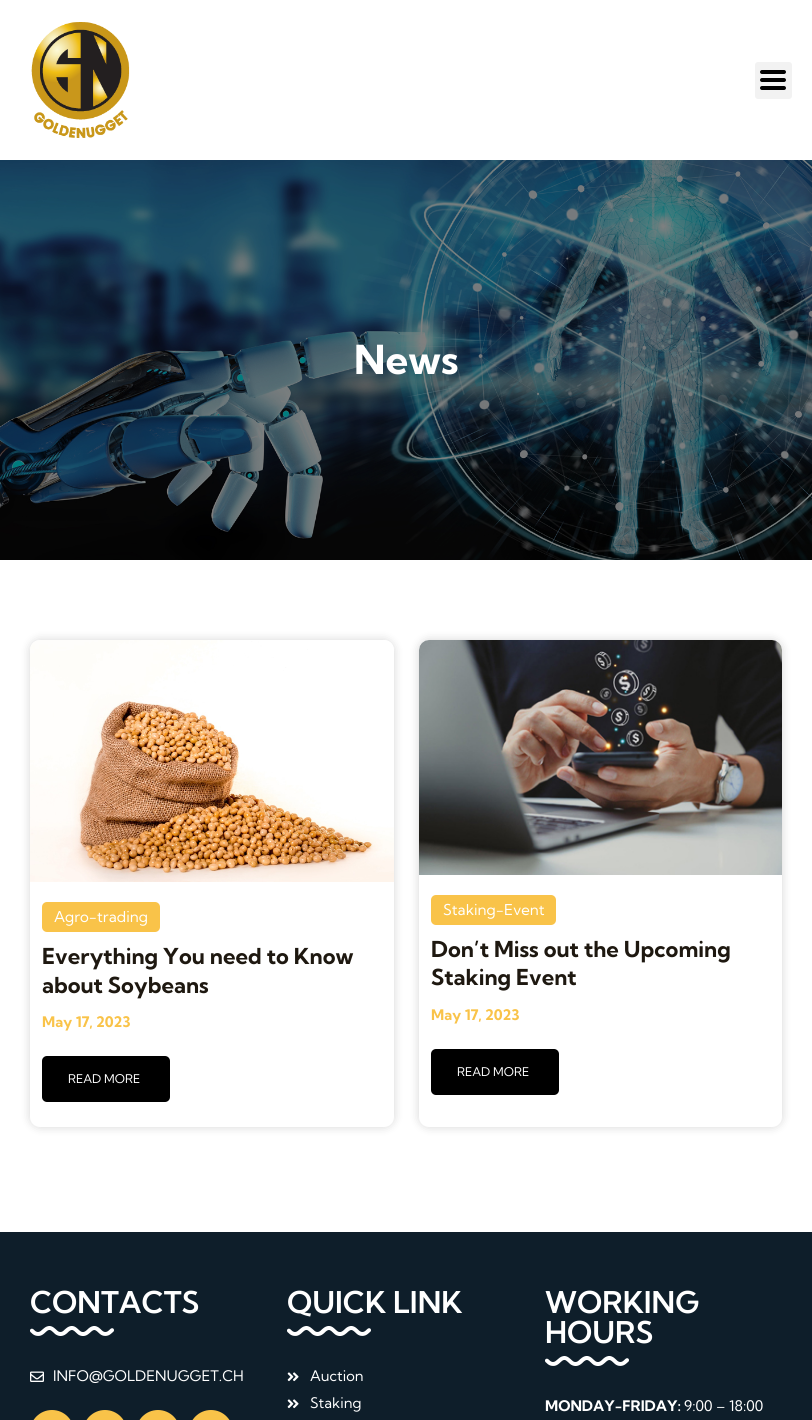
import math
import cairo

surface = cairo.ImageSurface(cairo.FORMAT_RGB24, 812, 1420)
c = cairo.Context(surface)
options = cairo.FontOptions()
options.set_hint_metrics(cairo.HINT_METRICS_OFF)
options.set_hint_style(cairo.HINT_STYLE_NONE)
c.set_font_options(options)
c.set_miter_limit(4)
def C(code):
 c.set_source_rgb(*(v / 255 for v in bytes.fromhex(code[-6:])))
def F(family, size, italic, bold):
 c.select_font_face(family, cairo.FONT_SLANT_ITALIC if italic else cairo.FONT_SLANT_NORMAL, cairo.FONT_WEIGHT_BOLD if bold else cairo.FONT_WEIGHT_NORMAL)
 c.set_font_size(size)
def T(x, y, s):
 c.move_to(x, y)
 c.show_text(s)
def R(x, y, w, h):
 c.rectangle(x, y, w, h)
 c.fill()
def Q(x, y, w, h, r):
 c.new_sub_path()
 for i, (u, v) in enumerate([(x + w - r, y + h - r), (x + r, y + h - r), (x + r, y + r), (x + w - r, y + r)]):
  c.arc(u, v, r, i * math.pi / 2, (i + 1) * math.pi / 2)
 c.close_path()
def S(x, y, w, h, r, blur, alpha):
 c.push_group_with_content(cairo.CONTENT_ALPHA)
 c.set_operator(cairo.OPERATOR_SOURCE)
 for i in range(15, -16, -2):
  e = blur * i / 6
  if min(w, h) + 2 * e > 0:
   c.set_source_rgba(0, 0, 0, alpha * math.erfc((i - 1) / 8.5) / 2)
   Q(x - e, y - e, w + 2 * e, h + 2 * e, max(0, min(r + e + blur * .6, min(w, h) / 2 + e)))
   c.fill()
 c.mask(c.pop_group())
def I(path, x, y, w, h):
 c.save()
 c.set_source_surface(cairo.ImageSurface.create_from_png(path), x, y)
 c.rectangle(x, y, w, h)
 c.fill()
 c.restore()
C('ffffff')
c.paint()
I('1.png',31,22,99,116)
C('f2f2f2')
Q(755,62,37,37,3)
c.fill()
C('000000')
Q(760,78,26,4,2)
c.fill()
Q(760,70,26,4,2)
c.fill()
Q(760,86,26,4,2)
c.fill()
I('2.png',0,160,812,400)
F('Kumbh Sans',40,0,1)
C('ffffff')
T(354,374,'News')
C('000000')
S(30,640,364,487,10,5,.16)
C('ffffff')
Q(30,640,364,487,10)
c.fill()
I('3.png',30,640,364,242)
C('f9c349')
Q(42,902,118,30,5)
c.fill()
F('Kumbh Sans',15,0,0)
C('ffffff')
T(54,922,'Agro-trading')
F('Kumbh Sans',22,0,1)
C('1e1810')
T(42,964,'Everything You need to Know')
T(42,993,'about Soybeans')
F('Kumbh Sans',14.6,0,1)
C('f9c349')
T(42,1027,'May 17, 2023')
C('000000')
Q(42,1056,128,46,5)
c.fill()
F('Kumbh Sans',12,0,0)
C('ffffff')
T(68,1083,'READ MORE')
C('000000')
S(419,640,363,487,10,5,.16)
C('ffffff')
Q(419,640,363,487,10)
c.fill()
I('4.png',419,640,363,235)
C('f9c349')
Q(431,895,125,30,5)
c.fill()
F('Kumbh Sans',15,0,0)
C('ffffff')
T(443,915,'Staking-Event')
F('Kumbh Sans',22,0,1)
C('1e1810')
T(431,957,'Don’t Miss out the Upcoming')
T(431,985,'Staking Event')
F('Kumbh Sans',14.6,0,1)
C('f9c349')
T(431,1020,'May 17, 2023')
C('000000')
Q(431,1049,128,46,5)
c.fill()
F('Kumbh Sans',12,0,0)
C('ffffff')
T(457,1076,'READ MORE')
C('0e1e2a')
R(0,1232,812,188)
F('Kumbh Sans SemiBold',30,0,0)
C('ffffff')
T(30,1313,'CONTACTS')
I('5.png',30,1326,84,10)
I('6.png',30,1371,14,11)
F('Kumbh Sans',14.6,0,0)
T(53,1381,'INFO@GOLDENUGGET.CH')
C('f9c349')
Q(30,1410,44,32,22)
c.fill()
Q(83,1410,44,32,22)
c.fill()
Q(136,1410,44,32,22)
c.fill()
Q(189,1410,44,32,22)
c.fill()
F('Kumbh Sans SemiBold',30,0,0)
C('ffffff')
T(287,1313,'QUICK LINK')
I('5.png',287,1326,84,10)
I('7.png',287,1372,12,10)
F('Kumbh Sans',14.6,0,0)
T(310,1381,'Auction')
I('7.png',287,1399,12,10)
T(310,1408,'Staking')
F('Kumbh Sans SemiBold',30,0,0)
T(545,1313,'WORKING')
T(545,1343,'HOURS')
I('5.png',545,1356,84,10)
F('Kumbh Sans',14.6,0,1)
T(545,1411,'MONDAY-FRIDAY:')
F('Kumbh Sans',14.6,0,0)
T(684,1411,'9:00 – 18:00')
surface.write_to_png('o.png')
